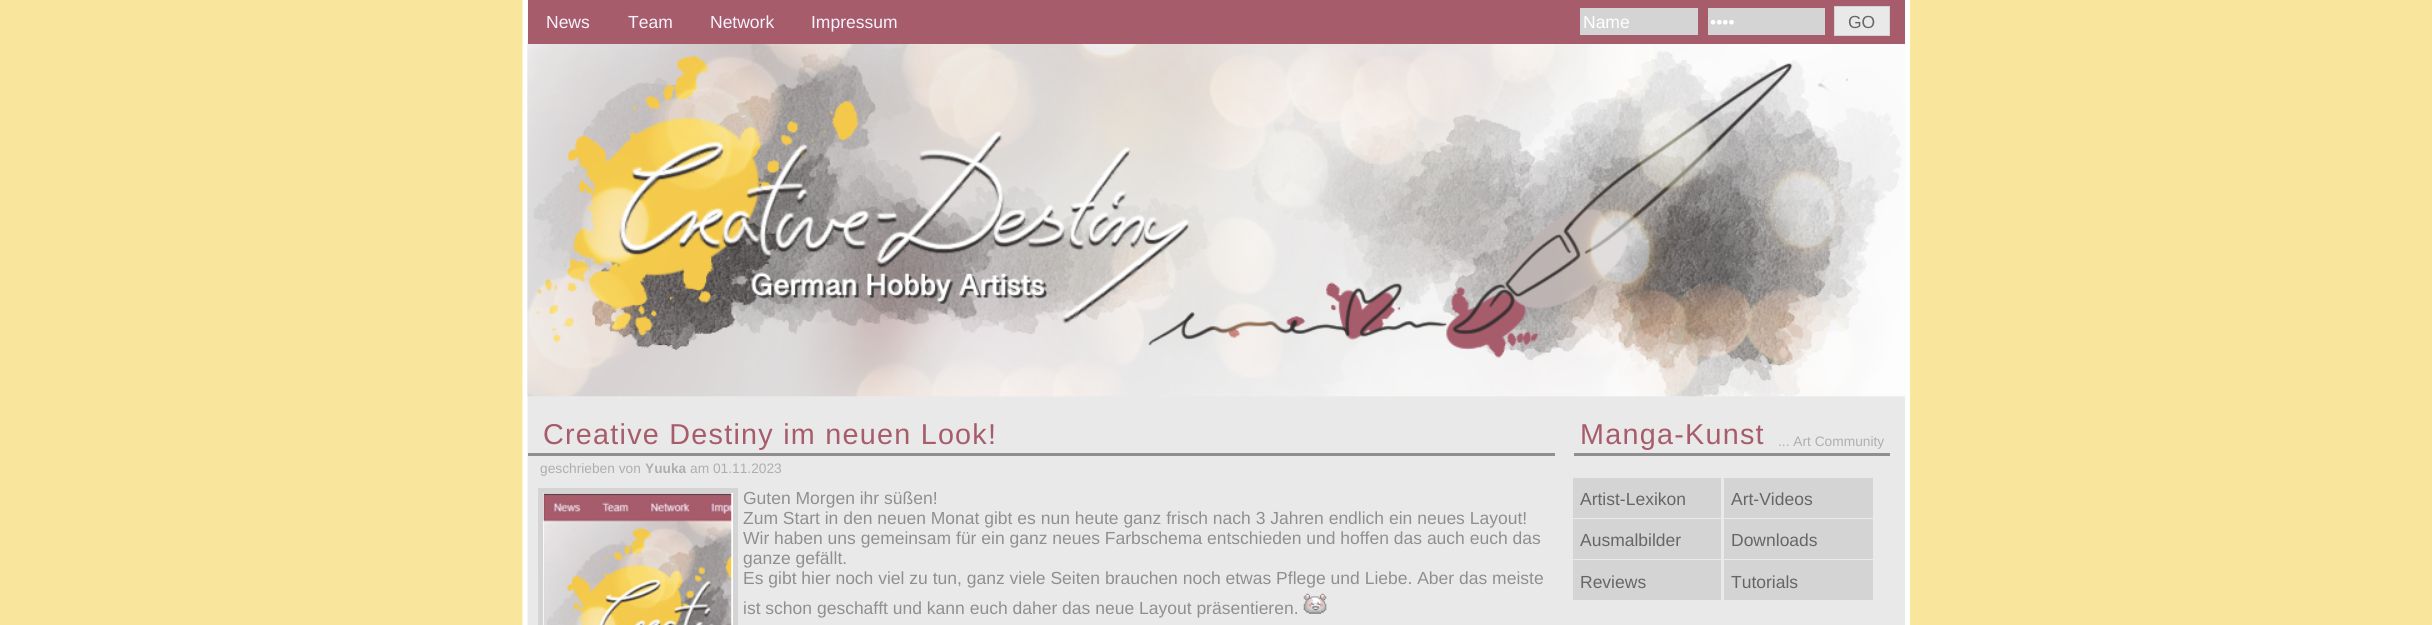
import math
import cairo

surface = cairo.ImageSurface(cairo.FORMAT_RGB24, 2432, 625)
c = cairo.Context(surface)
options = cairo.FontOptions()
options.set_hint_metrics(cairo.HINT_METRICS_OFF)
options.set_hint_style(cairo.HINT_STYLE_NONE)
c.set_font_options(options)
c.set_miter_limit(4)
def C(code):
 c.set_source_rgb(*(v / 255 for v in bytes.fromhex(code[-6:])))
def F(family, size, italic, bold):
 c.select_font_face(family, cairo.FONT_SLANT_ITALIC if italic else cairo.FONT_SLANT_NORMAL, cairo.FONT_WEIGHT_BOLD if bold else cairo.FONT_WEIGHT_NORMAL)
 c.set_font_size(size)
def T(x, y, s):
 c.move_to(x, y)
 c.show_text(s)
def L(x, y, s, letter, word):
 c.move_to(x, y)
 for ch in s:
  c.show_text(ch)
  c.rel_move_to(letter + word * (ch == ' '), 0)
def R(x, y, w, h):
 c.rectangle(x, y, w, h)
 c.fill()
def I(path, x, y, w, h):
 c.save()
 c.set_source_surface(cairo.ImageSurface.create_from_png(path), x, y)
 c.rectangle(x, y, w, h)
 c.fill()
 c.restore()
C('fae59c')
c.paint()
I('1.png',522,0,1389,625)
I('2.png',527,0,1378,397)
C('a75c6c')
R(528,0,1377,44)
F('Liberation Sans',17.5,0,0)
C('f6f2ff')
T(546,28,'News')
T(628,28,'Team')
T(710,28,'Network')
T(811,28,'Impressum')
C('d4d4d4')
R(1580,8,118,27)
C('ffffff')
T(1583,28,'Name')
C('d4d4d4')
R(1708,8,117,27)
C('ffffff')
T(1710,28,'••••')
C('eae9e9')
c.rectangle(1834.5,6.5,55,29)
c.fill_preserve()
C('d4d4d4')
c.set_line_width(1)
c.stroke()
C('686565')
T(1848,28,'GO')
C('918e8e')
R(528,453,1027,3)
F('Liberation Sans',28.75,0,0)
C('a75c6c')
L(543,444,'Creative Destiny im neuen Look!',1.25,0)
F('Liberation Sans',13.75,0,0)
C('aeaeae')
T(540,473,'geschrieben von')
F('Liberation Sans',13.75,0,1)
T(645,473,'Yuuka')
F('Liberation Sans',13.75,0,0)
T(690,473,'am 01.11.2023')
C('d4d4d4')
R(538,488,200,137)
C('ffffff')
R(543,493,190,132)
I('3.png',543,493,189,132)
F('Liberation Sans',17.5,0,0)
C('918e8e')
T(743,504,'Guten Morgen ihr süßen!')
T(743,524,'Zum Start in den neuen Monat gibt es nun heute ganz frisch nach 3 Jahren endlich ein neues Layout!')
T(743,544,'Wir haben uns gemeinsam für ein ganz neues Farbschema entschieden und hoffen das auch euch das')
T(743,564,'ganze gefällt.')
T(743,584,'Es gibt hier noch viel zu tun, ganz viele Seiten brauchen noch etwas Pflege und Liebe. Aber das meiste')
T(743,614,'ist schon geschafft und kann euch daher das neue Layout präsentieren.')
I('4.png',1303,593,24,21)
R(1574,453,316,3)
F('Liberation Sans',28.75,0,0)
C('a75c6c')
L(1580,444,'Manga-Kunst',1.25,0)
F('Liberation Sans',13.75,0,0)
C('aeaeae')
T(1778,446,'... Art Community')
C('d4d4d4')
R(1573,478,148,40)
F('Liberation Sans',17.5,0,0)
C('686565')
T(1580,505,'Artist-Lexikon')
C('d4d4d4')
R(1724,478,149,40)
C('686565')
T(1731,505,'Art-Videos')
C('d4d4d4')
R(1573,519,148,40)
C('686565')
T(1580,546,'Ausmalbilder')
C('d4d4d4')
R(1724,519,149,40)
C('686565')
T(1731,546,'Downloads')
C('d4d4d4')
R(1573,560,148,40)
C('686565')
T(1580,588,'Reviews')
C('d4d4d4')
R(1724,560,149,40)
C('686565')
T(1731,588,'Tutorials')
surface.write_to_png('o.png')
